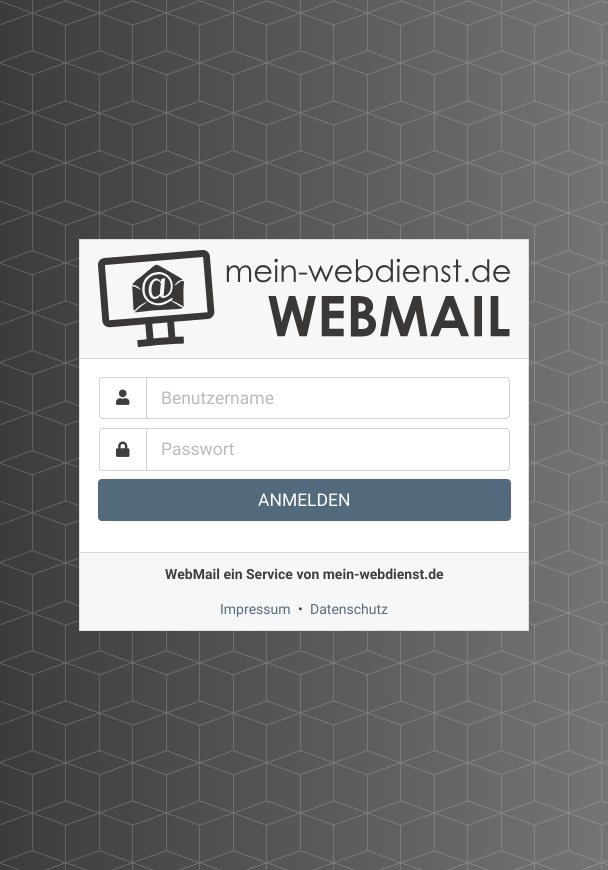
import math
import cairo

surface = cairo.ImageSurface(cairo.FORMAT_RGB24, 608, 870)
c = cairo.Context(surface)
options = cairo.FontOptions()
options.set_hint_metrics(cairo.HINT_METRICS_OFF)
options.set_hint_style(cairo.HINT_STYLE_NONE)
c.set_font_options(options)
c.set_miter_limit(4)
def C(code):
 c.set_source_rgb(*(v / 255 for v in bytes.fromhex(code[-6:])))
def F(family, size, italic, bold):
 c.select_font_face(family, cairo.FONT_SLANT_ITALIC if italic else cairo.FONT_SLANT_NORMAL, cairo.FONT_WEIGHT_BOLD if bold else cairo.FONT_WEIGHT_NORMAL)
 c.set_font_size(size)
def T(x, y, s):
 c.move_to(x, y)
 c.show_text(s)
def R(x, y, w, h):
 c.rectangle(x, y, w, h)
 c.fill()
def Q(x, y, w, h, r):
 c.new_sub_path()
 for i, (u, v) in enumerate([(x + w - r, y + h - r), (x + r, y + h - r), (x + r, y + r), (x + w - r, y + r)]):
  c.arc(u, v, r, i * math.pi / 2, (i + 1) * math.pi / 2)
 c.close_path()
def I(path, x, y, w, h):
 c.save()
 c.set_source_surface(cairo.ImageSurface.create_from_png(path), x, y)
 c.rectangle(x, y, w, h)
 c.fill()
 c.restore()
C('ffffff')
c.paint()
I('1.png',0,0,608,870)
C('ffffff')
R(80,359,448,193)
c.rectangle(79.5,239.5,449,391)
C('dfdfdf')
c.set_line_width(1)
c.stroke()
C('f7f7f7')
R(80,240,448,118)
C('d8d8d8')
R(80,358,448,1)
I('2.png',98,250,412,97)
c.new_path()
c.move_to(103,377.5)
c.line_to(146.5,377.5)
c.line_to(146.5,418.5)
c.line_to(103,418.5)
c.curve_to(101,418.5,99.5,417,99.5,415)
c.line_to(99.5,381)
c.curve_to(99.5,379,101,377.5,103,377.5)
c.close_path()
C('ced4da')
c.stroke()
I('3.png',116,389,14,16)
c.new_path()
c.move_to(146.5,377.5)
c.line_to(506,377.5)
c.curve_to(508,377.5,509.5,379,509.5,381)
c.line_to(509.5,415)
c.curve_to(509.5,417,508,418.5,506,418.5)
c.line_to(146.5,418.5)
c.close_path()
c.stroke()
F('Roboto',17.5,0,0)
C('bbbbbb')
T(161,404,'Benutzername')
c.new_path()
c.move_to(103,428.5)
c.line_to(146.5,428.5)
c.line_to(146.5,470.5)
c.line_to(103,470.5)
c.curve_to(101,470.5,99.5,469,99.5,467)
c.line_to(99.5,432)
c.curve_to(99.5,430,101,428.5,103,428.5)
c.close_path()
C('ced4da')
c.stroke()
I('4.png',116,441,14,16)
c.new_path()
c.move_to(146.5,428.5)
c.line_to(506,428.5)
c.curve_to(508,428.5,509.5,430,509.5,432)
c.line_to(509.5,467)
c.curve_to(509.5,469,508,470.5,506,470.5)
c.line_to(146.5,470.5)
c.close_path()
c.stroke()
C('bbbbbb')
T(161,455,'Passwort')
C('536a7d')
Q(98.5,479.5,412,41,3.5)
c.fill_preserve()
c.stroke()
C('ffffff')
T(258,506,'ANMELDEN')
C('f7f7f7')
R(80,553,448,77)
C('d8d8d8')
R(80,552,448,1)
F('Roboto',14,0,1)
C('3f3f3f')
T(165,579,'WebMail ein Service von mein-webdienst.de')
F('Roboto',14,0,0)
C('536a7d')
T(220,614,'Impressum')
C('3f3f3f')
T(298,614,'•')
C('536a7d')
T(310,614,'Datenschutz')
surface.write_to_png('o.png')
